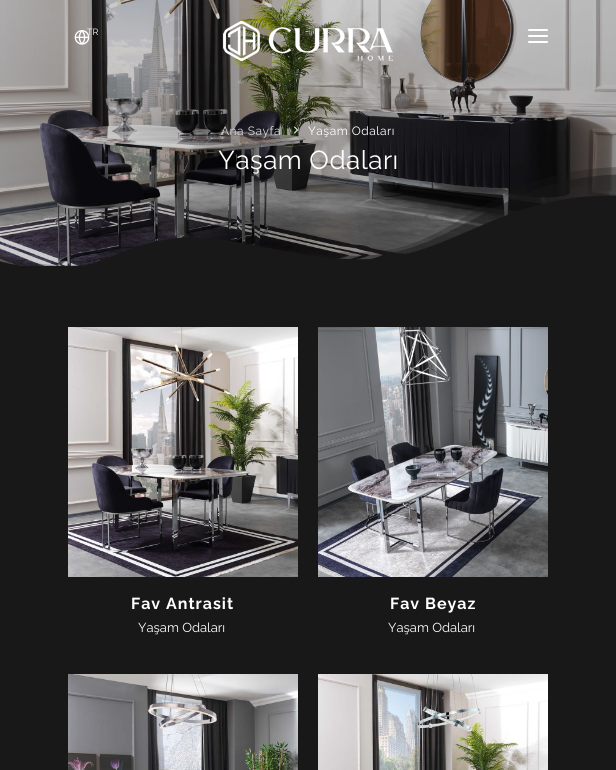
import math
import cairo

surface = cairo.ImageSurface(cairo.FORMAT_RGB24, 616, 770)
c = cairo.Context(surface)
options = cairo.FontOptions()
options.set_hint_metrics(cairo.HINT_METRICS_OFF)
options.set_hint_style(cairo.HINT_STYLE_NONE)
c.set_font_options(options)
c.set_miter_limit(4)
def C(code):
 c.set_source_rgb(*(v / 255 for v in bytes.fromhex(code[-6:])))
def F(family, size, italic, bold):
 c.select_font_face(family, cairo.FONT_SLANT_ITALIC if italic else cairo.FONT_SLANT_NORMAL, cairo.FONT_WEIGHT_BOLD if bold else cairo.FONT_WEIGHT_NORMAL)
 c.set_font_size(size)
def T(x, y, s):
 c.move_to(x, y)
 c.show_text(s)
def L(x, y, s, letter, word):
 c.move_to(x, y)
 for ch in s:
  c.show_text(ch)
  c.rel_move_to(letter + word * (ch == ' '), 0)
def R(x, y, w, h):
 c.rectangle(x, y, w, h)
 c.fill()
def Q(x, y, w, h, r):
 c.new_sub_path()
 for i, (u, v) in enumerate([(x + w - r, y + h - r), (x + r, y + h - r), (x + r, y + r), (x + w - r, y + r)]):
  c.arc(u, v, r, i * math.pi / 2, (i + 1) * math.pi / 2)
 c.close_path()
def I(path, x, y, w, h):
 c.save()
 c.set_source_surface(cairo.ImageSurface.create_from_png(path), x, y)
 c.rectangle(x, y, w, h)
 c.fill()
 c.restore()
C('ffffff')
c.paint()
I('3.png',0,0,616,266)
I('1.png',74,30,16,15)
F('Raleway',9,0,0)
C('ffffff')
T(87,35,'TR')
I('2.png',223,21,170,40)
Q(528,35,20,2,1)
c.fill()
Q(528,29,20,2,1)
c.fill()
Q(528,41,20,2,1)
c.fill()
F('Raleway',12,0,0)
C('d9d9da')
L(221,135,'Ana Sayfa',.5,0)
I('4.png',294,126,4,8)
C('ffffff')
L(308,135,'Yaşam Odaları',.5,0)
F('Raleway',26,0,0)
L(218,169,'Yaşam Odaları',.5,0)
I('5.png',0,167,616,99)
C('181818')
R(0,266,616,504)
I('6.png',68,327,230,250)
F('Raleway',16,0,1)
C('ffffff')
L(131,609,'Fav Antrasit',1,0)
F('Raleway',13,0,0)
T(138,632,'Yaşam Odaları')
I('7.png',318,327,230,250)
F('Raleway',16,0,1)
L(390,609,'Fav Beyaz',1,0)
F('Raleway',13,0,0)
T(388,632,'Yaşam Odaları')
I('8.png',68,674,230,96)
I('9.png',318,674,230,96)
surface.write_to_png('o.png')
